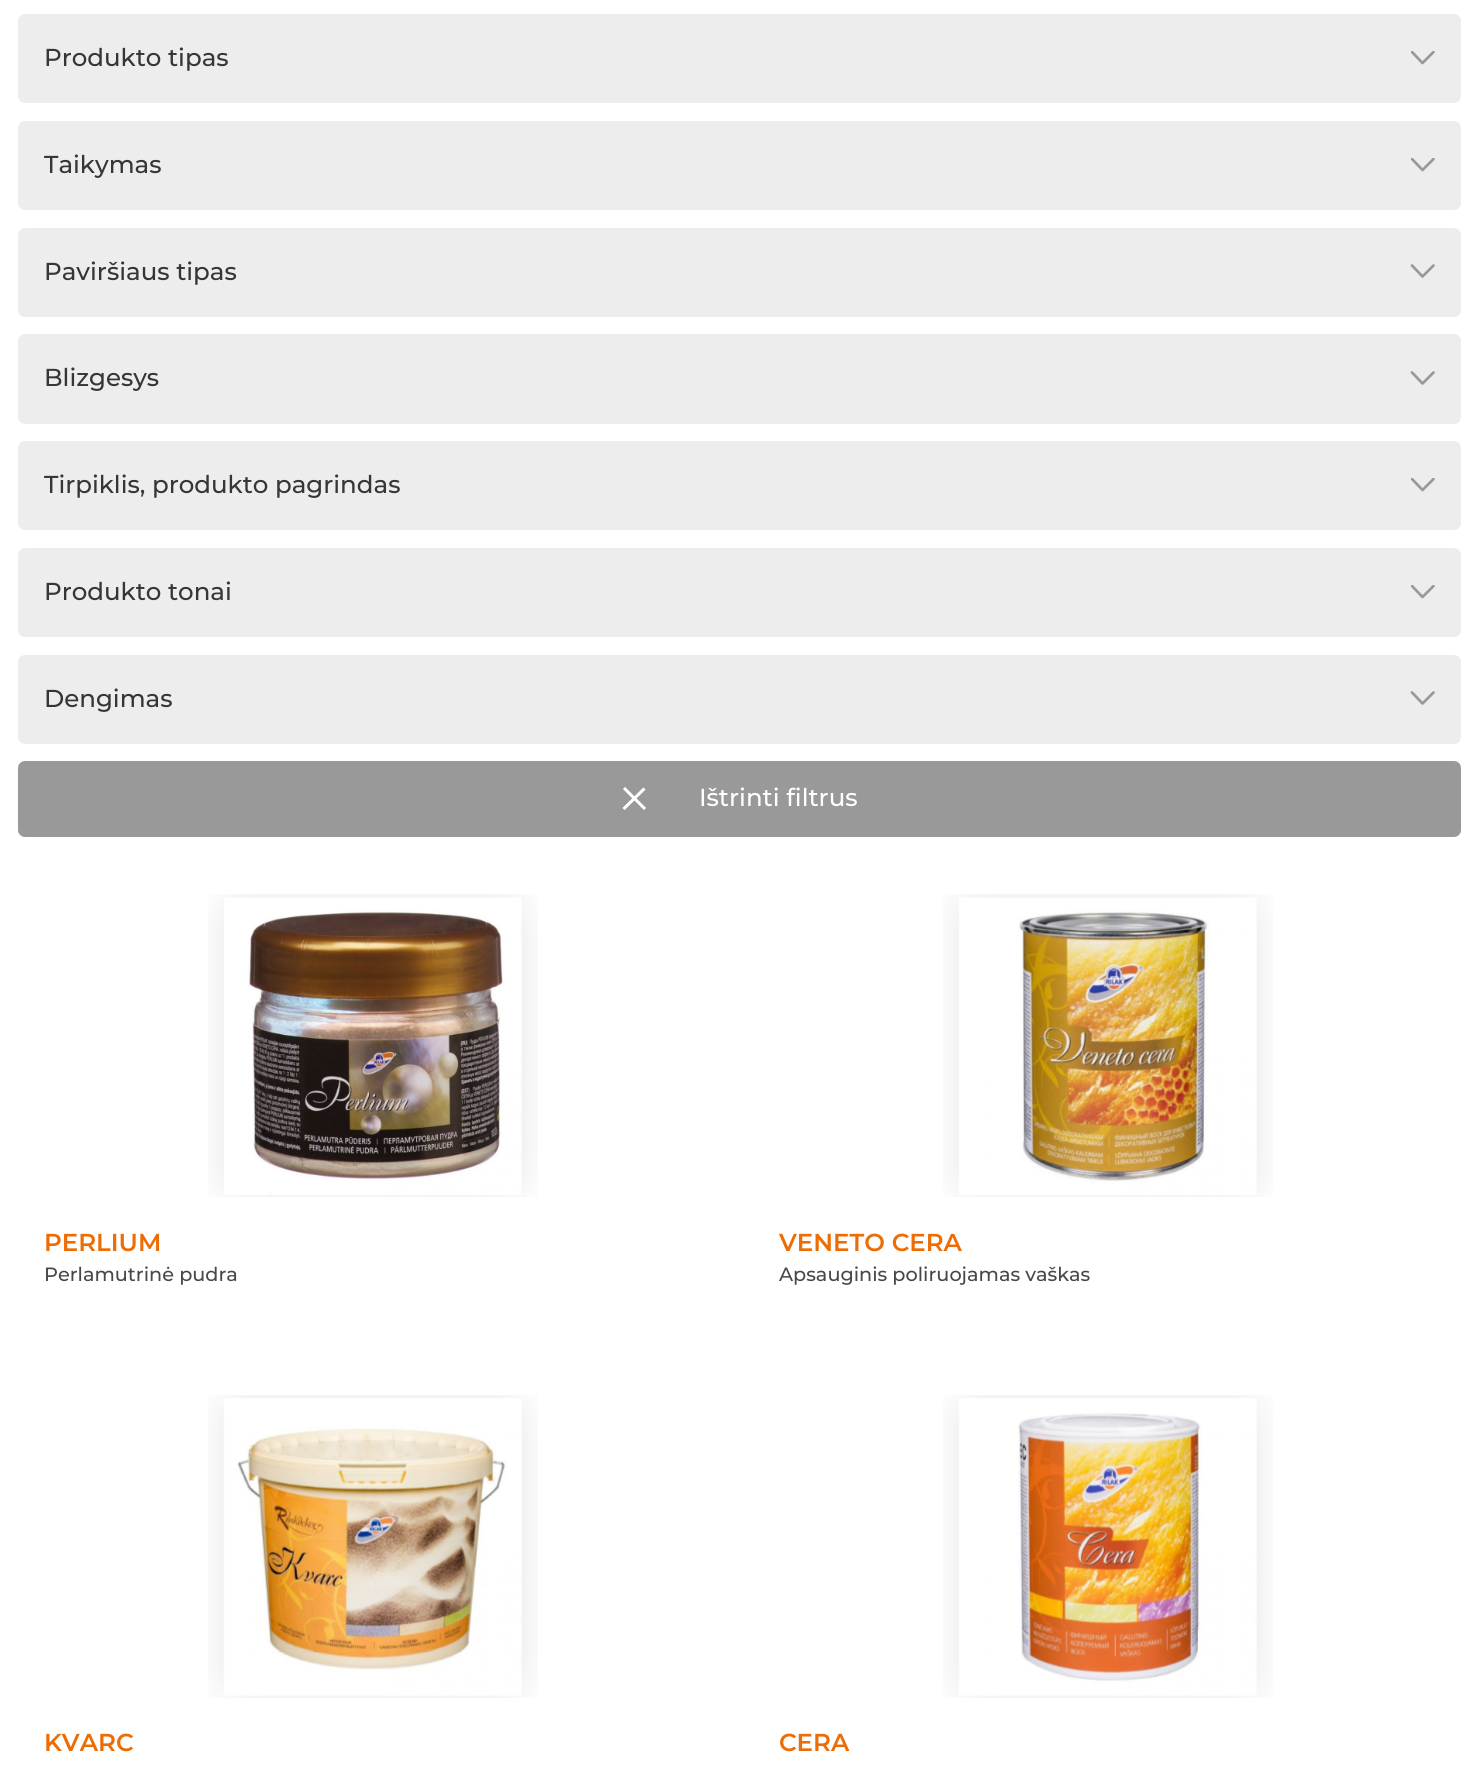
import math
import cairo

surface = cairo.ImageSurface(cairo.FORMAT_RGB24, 1478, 1771)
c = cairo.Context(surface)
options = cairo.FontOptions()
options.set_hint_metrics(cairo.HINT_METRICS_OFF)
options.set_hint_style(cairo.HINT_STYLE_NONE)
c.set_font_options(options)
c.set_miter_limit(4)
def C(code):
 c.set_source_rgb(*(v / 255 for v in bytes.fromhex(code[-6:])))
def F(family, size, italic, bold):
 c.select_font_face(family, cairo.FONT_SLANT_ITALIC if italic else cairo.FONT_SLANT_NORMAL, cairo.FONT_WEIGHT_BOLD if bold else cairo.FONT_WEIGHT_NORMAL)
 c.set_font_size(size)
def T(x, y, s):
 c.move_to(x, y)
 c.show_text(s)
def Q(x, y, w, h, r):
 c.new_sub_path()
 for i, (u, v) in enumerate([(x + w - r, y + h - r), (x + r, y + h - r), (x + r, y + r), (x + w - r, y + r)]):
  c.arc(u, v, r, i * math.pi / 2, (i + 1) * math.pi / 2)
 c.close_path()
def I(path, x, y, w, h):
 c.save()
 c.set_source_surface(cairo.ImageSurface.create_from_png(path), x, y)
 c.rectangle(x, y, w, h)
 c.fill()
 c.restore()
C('ffffff')
c.paint()
C('ededed')
Q(18,14,1443,89,7)
c.fill()
F('Montserrat Medium',24.5,0,0)
C('363636')
T(44,66,'Produkto tipas')
c.save()
c.rectangle(1411,51,24,16)
c.clip()
c.new_path()
c.move_to(1433.5,52)
c.line_to(1422.5,63)
c.line_to(1412,52)
C('999999')
c.set_line_width(2.7)
c.set_line_cap(cairo.LINE_CAP_ROUND)
c.set_line_join(cairo.LINE_JOIN_ROUND)
c.stroke()
c.restore()
C('ededed')
Q(18,121,1443,89,7)
c.fill()
C('363636')
T(44,173,'Taikymas')
c.save()
c.rectangle(1411,158,24,15)
c.clip()
c.new_path()
c.move_to(1433.5,159)
c.line_to(1422.5,170)
c.line_to(1412,159)
C('999999')
c.set_line_width(2.7)
c.set_line_cap(cairo.LINE_CAP_ROUND)
c.set_line_join(cairo.LINE_JOIN_ROUND)
c.stroke()
c.restore()
C('ededed')
Q(18,228,1443,89,7)
c.fill()
C('363636')
T(44,280,'Paviršiaus tipas')
c.new_path()
c.move_to(1433.5,265.5)
c.line_to(1422.5,276.5)
c.line_to(1412,265.5)
C('999999')
c.set_line_width(2.7)
c.set_line_cap(cairo.LINE_CAP_ROUND)
c.set_line_join(cairo.LINE_JOIN_ROUND)
c.stroke()
C('ededed')
Q(18,334,1443,90,7)
c.fill()
C('363636')
T(44,386,'Blizgesys')
c.new_path()
c.move_to(1433.5,372.5)
c.line_to(1422.5,383.5)
c.line_to(1412,372.5)
C('999999')
c.stroke()
C('ededed')
Q(18,441,1443,89,7)
c.fill()
C('363636')
T(44,493,'Tirpiklis, produkto pagrindas')
c.save()
c.rectangle(1411,478,24,16)
c.clip()
c.new_path()
c.move_to(1433.5,479)
c.line_to(1422.5,490)
c.line_to(1412,479)
C('999999')
c.stroke()
c.restore()
C('ededed')
Q(18,548,1443,89,7)
c.fill()
C('363636')
T(44,600,'Produkto tonai')
c.save()
c.rectangle(1411,585,24,15)
c.clip()
c.new_path()
c.move_to(1433.5,586)
c.line_to(1422.5,597)
c.line_to(1412,586)
C('999999')
c.stroke()
c.restore()
C('ededed')
Q(18,655,1443,89,7)
c.fill()
C('363636')
T(44,707,'Dengimas')
c.new_path()
c.move_to(1433.5,692.5)
c.line_to(1422.5,703.5)
c.line_to(1412,692.5)
C('999999')
c.stroke()
Q(18,761,1443,76,7)
c.fill()
c.new_path()
c.move_to(624,788)
c.line_to(645,809)
c.move_to(623.5,809)
c.line_to(644.5,788.5)
C('ffffff')
c.set_line_width(3)
c.set_line_cap(cairo.LINE_CAP_BUTT)
c.set_line_join(cairo.LINE_JOIN_MITER)
c.stroke()
T(699,806,'Ištrinti filtrus')
I('1.png',208,894,330,303)
F('Montserrat SemiBold',24.5,0,0)
C('ed6d04')
T(44,1251,'PERLIUM')
F('Montserrat Medium',19.25,0,0)
C('484848')
T(44,1281,'Perlamutrinė pudra')
I('2.png',943,894,330,303)
F('Montserrat SemiBold',24.5,0,0)
C('ed6d04')
T(779,1251,'VENETO CERA')
F('Montserrat Medium',19.25,0,0)
C('484848')
T(779,1281,'Apsauginis poliruojamas vaškas')
I('3.png',208,1395,330,303)
F('Montserrat SemiBold',24.5,0,0)
C('ed6d04')
T(44,1751,'KVARC')
I('4.png',943,1395,330,303)
T(779,1751,'CERA')
surface.write_to_png('o.png')
